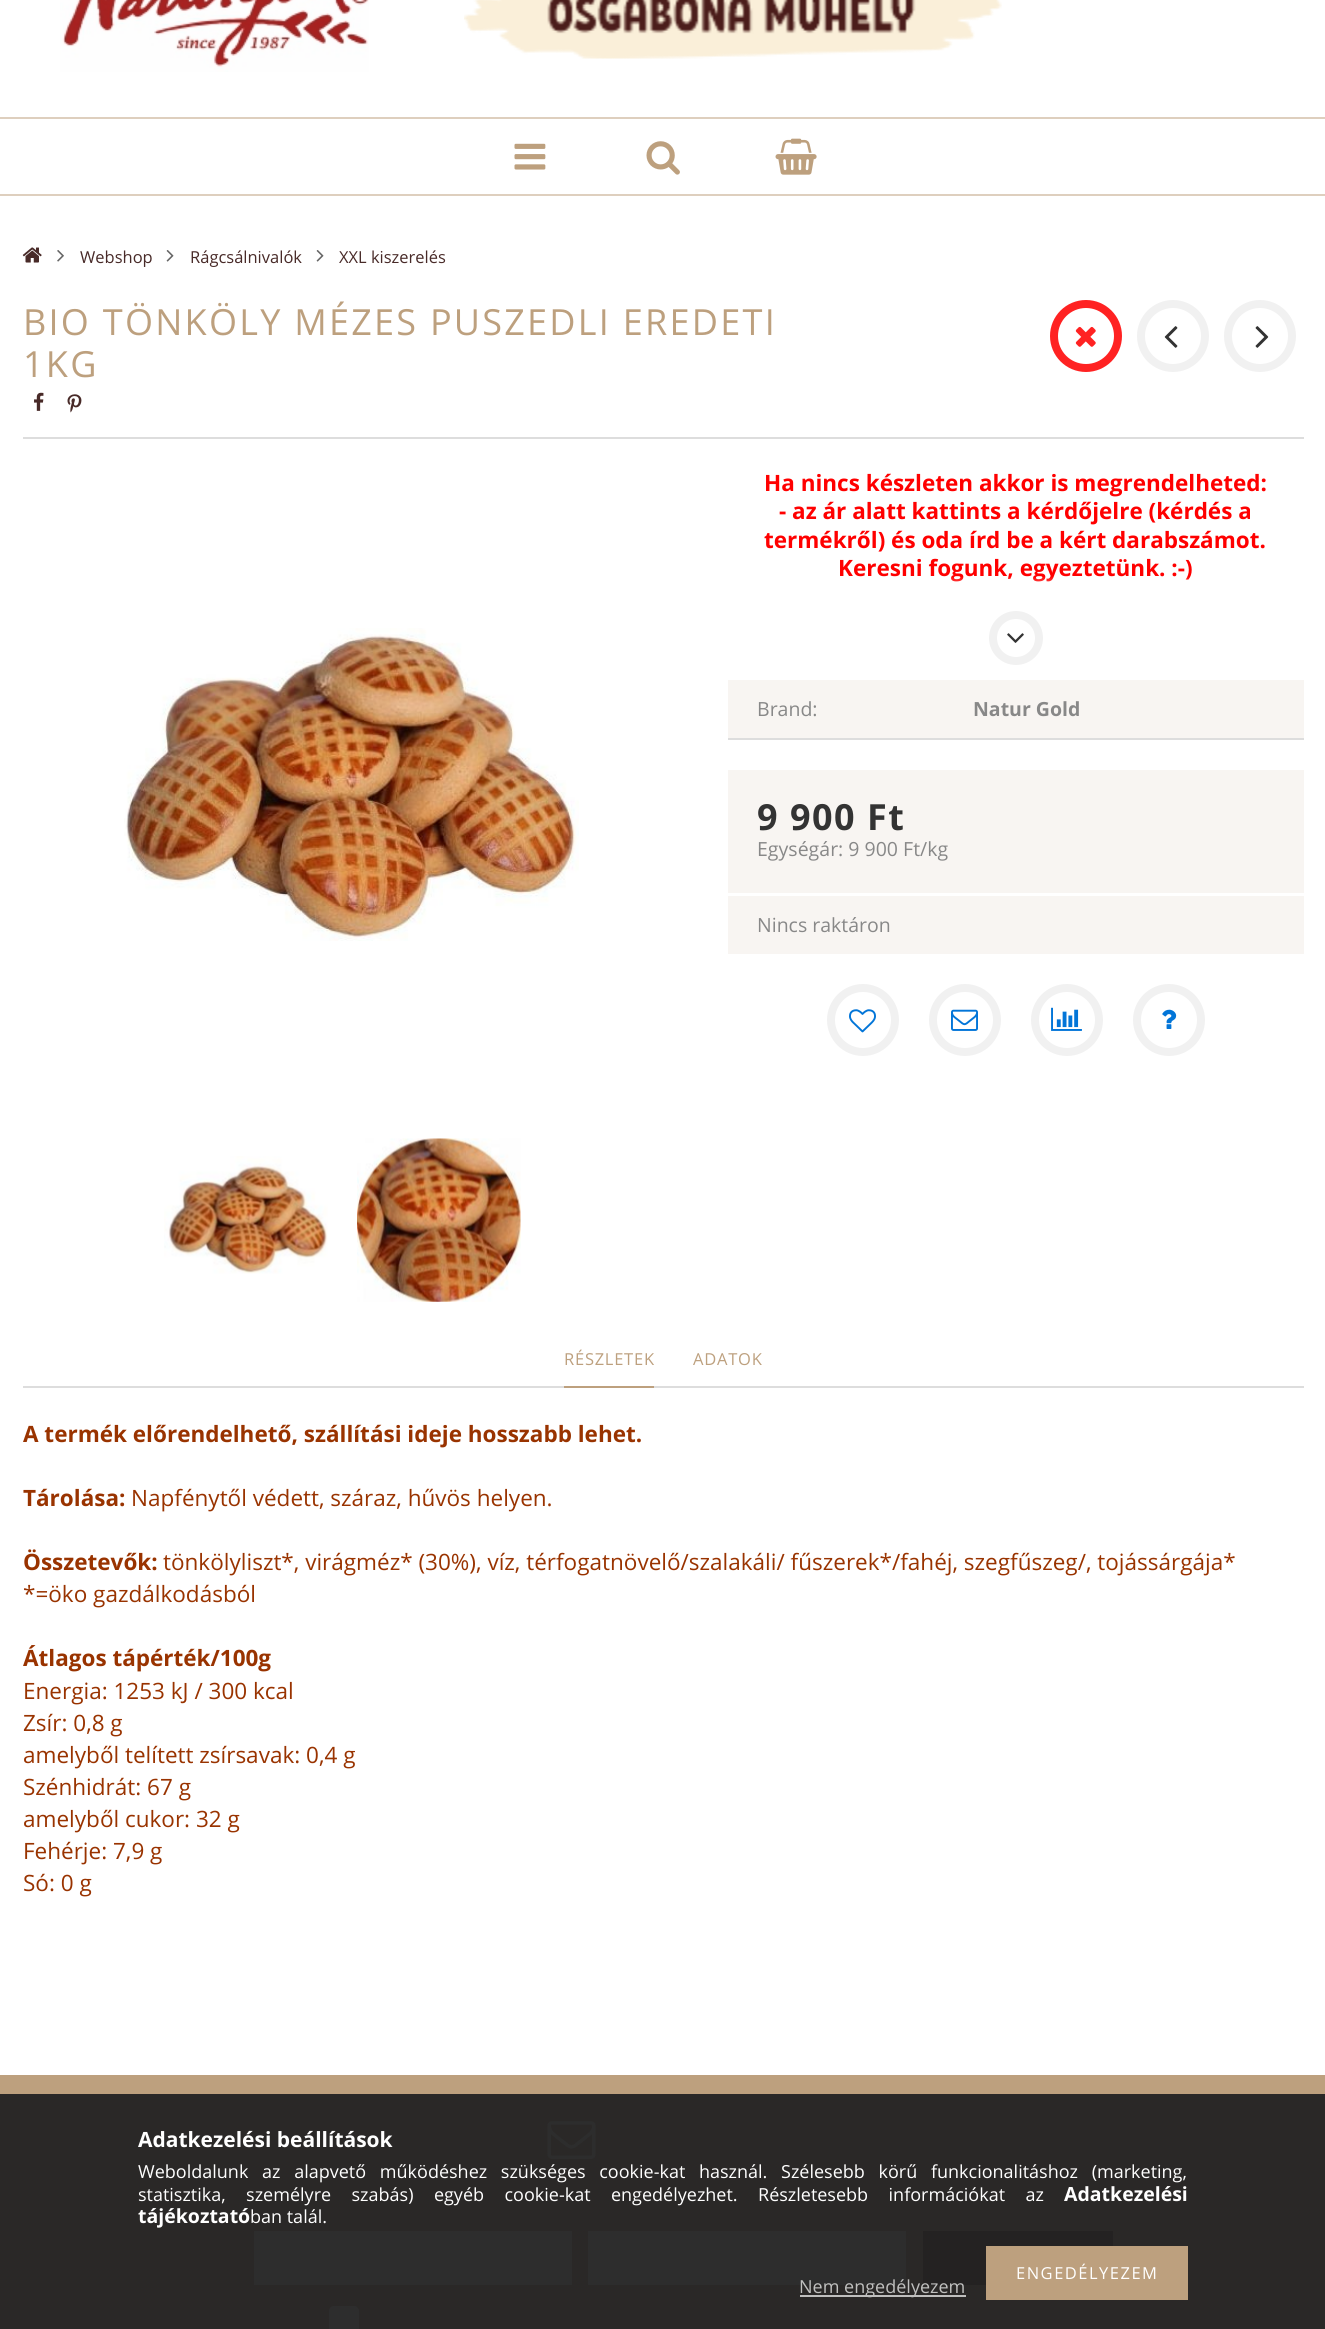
import math
import cairo

surface = cairo.ImageSurface(cairo.FORMAT_RGB24, 1325, 2329)
c = cairo.Context(surface)
options = cairo.FontOptions()
options.set_hint_metrics(cairo.HINT_METRICS_OFF)
options.set_hint_style(cairo.HINT_STYLE_NONE)
c.set_font_options(options)
c.set_miter_limit(4)
def C(code):
 c.set_source_rgb(*(v / 255 for v in bytes.fromhex(code[-6:])))
def F(family, size, italic, bold):
 c.select_font_face(family, cairo.FONT_SLANT_ITALIC if italic else cairo.FONT_SLANT_NORMAL, cairo.FONT_WEIGHT_BOLD if bold else cairo.FONT_WEIGHT_NORMAL)
 c.set_font_size(size)
def T(x, y, s):
 c.move_to(x, y)
 c.show_text(s)
def L(x, y, s, letter, word):
 c.move_to(x, y)
 for ch in s:
  c.show_text(ch)
  c.rel_move_to(letter + word * (ch == ' '), 0)
def R(x, y, w, h):
 c.rectangle(x, y, w, h)
 c.fill()
def Q(x, y, w, h, r):
 c.new_sub_path()
 for i, (u, v) in enumerate([(x + w - r, y + h - r), (x + r, y + h - r), (x + r, y + r), (x + w - r, y + r)]):
  c.arc(u, v, r, i * math.pi / 2, (i + 1) * math.pi / 2)
 c.close_path()
def I(path, x, y, w, h):
 c.save()
 c.set_source_surface(cairo.ImageSurface.create_from_png(path), x, y)
 c.rectangle(x, y, w, h)
 c.fill()
 c.restore()
C('ffffff')
c.paint()
I('1.png',60,0,309,72)
I('2.png',464,0,538,59)
C('decfbe')
R(0,117,1325,2)
R(0,194,1325,2)
I('3.png',514,143,32,27)
I('4.png',646,141,34,34)
I('5.png',775,138,42,37)
I('6.png',22,247,20,16)
I('7.png',57,250,7,12)
F('Open Sans',16.5,0,0)
C('482a28')
T(80,263,'Webshop')
I('8.png',166,250,8,12)
T(190,263,'Rágcsálnivalók')
I('8.png',316,250,8,12)
T(339,263,'XXL kiszerelés')
C('dddddd')
R(23,437,1281,2)
F('Open Sans',36,0,0)
C('bda07e')
L(23,335,'BIO TÖNKÖLY MÉZES PUSZEDLI EREDETI',2.25,0)
L(23,377,'1KG',2.25,0)
I('9.png',34,392,10,19)
I('10.png',67,394,15,19)
c.arc(1086,336,32,0,2 * math.pi)
C('ff2222')
c.set_line_width(8)
c.stroke()
I('11.png',1075,326,21,21)
c.arc(1173,336,32,0,2 * math.pi)
C('f1f1f1')
c.stroke()
I('12.png',1164,326,14,22)
c.arc(1260,336,32,0,2 * math.pi)
c.stroke()
I('13.png',1255,326,14,22)
I('14.png',124,628,455,313)
I('15.png',164,1156,164,118)
I('16.png',357,1138,164,164)
F('Open Sans',22.5,0,1)
C('ff0000')
T(764,491,'Ha nincs készleten akkor is megrendelheted:')
T(779,519,'- az ár alatt kattints a kérdőjelre (kérdés a')
T(764,548,'termékről) és oda írd be a kért darabszámot.')
T(838,576,'Keresni fogunk, egyeztetünk. :-)')
gradient = cairo.LinearGradient(1016,576,1016,603)
gradient.add_color_stop_rgba(0,1,1,1,0)
gradient.add_color_stop_rgba(1,1,1,1,1)
c.set_source(gradient)
R(951,577,239,5)
c.new_path()
c.arc(1016,638,23,0,2 * math.pi)
C('f1f1f1')
c.stroke()
I('17.png',1007,633,17,10)
C('dddddd')
R(728,738,576,2)
C('f8f5f2')
R(728,680,576,58)
F('Open Sans',19.5,0,0)
C('888888')
T(757,716,'Brand:')
F('Open Sans',19.5,0,1)
T(973,716,'Natur Gold')
C('f8f5f2')
R(728,770,576,123)
F('Open Sans',36,0,1)
C('333333')
L(757,830,'9 900 Ft',1.5,0)
F('Open Sans',19.5,0,0)
C('888888')
T(757,856,'Egységár: 9 900 Ft/kg')
C('f8f5f2')
R(728,896,576,58)
C('888888')
T(757,932,'Nincs raktáron')
c.new_path()
c.arc(863,1020,32,0,2 * math.pi)
C('f1f1f1')
c.stroke()
I('18.png',849,1009,27,24)
c.arc(965,1020,32,0,2 * math.pi)
c.stroke()
I('19.png',951,1009,27,22)
c.arc(1067,1020,32,0,2 * math.pi)
c.stroke()
I('20.png',1051,1007,31,24)
c.arc(1169,1020,32,0,2 * math.pi)
c.stroke()
I('21.png',1162,1009,15,20)
C('dddddd')
R(23,1386,1281,2)
C('bda07e')
R(564,1386,90,2)
F('Open Sans',16.5,0,0)
L(564,1365,'RÉSZLETEK',.75,0)
L(693,1365,'ADATOK',.75,0)
F('Open Sans',22.5,0,1)
C('993300')
T(23,1442,'A termék előrendelhető, szállítási ideje hosszabb lehet.')
T(23,1506,'Tárolása:')
F('Open Sans',22.5,0,0)
T(131,1506,'Napfénytől védett, száraz, hűvös helyen.')
F('Open Sans',22.5,0,1)
T(23,1570,'Összetevők:')
F('Open Sans',22.5,0,0)
T(163,1570,'tönkölyliszt*, virágméz* (30%), víz, térfogatnövelő/szalakáli/ fűszerek*/fahéj, szegfűszeg/, tojássárgája*')
T(23,1602,'*=öko gazdálkodásból')
F('Open Sans',22.5,0,1)
T(23,1666,'Átlagos tápérték/100g')
F('Open Sans',22.5,0,0)
T(23,1699,'Energia: 1253 kJ / 300 kcal')
T(23,1731,'Zsír: 0,8 g')
T(23,1763,'amelyből telített zsírsavak: 0,4 g')
T(23,1795,'Szénhidrát: 67 g')
T(23,1827,'amelyből cukor: 32 g')
T(23,1859,'Fehérje: 7,9 g')
T(23,1891,'Só: 0 g')
C('bda07e')
R(0,2075,1325,19)
C('2a2827')
R(0,2094,1325,235)
I('22.png',547,2121,49,38)
C('2d2d2d')
R(254,2231,318,54)
R(588,2231,318,54)
C('242222')
R(923,2231,190,54)
C('2d2d2d')
Q(329,2306,30,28,5)
c.fill()
F('Open Sans',21,0,1)
C('ffffff')
T(138,2147,'Adatkezelési beállítások')
F('Open Sans',18,0,0)
L(138,2178,'Weboldalunk az alapvető működéshez szükséges cookie-kat használ. Szélesebb körű funkcionalitáshoz (marketing,',0,9)
L(138,2201,'statisztika, személyre szabás) egyéb cookie-kat engedélyezhet. Részletesebb információkat az',0,15.75)
F('Open Sans',19.5,0,1)
T(1064,2201,'Adatkezelési')
T(138,2223,'tájékoztató')
F('Open Sans',18,0,0)
T(250,2223,'ban talál.')
C('bda07e')
R(986,2246,202,54)
F('Open Sans',16.5,0,0)
C('ffffff')
L(1016,2279,'ENGEDÉLYEZEM',1.5,0)
C('bfbfbe')
R(800,2295,166,2)
F('Open Sans',18,0,0)
C('c0c0bf')
T(799,2293,'Nem engedélyezem')
surface.write_to_png('o.png')
